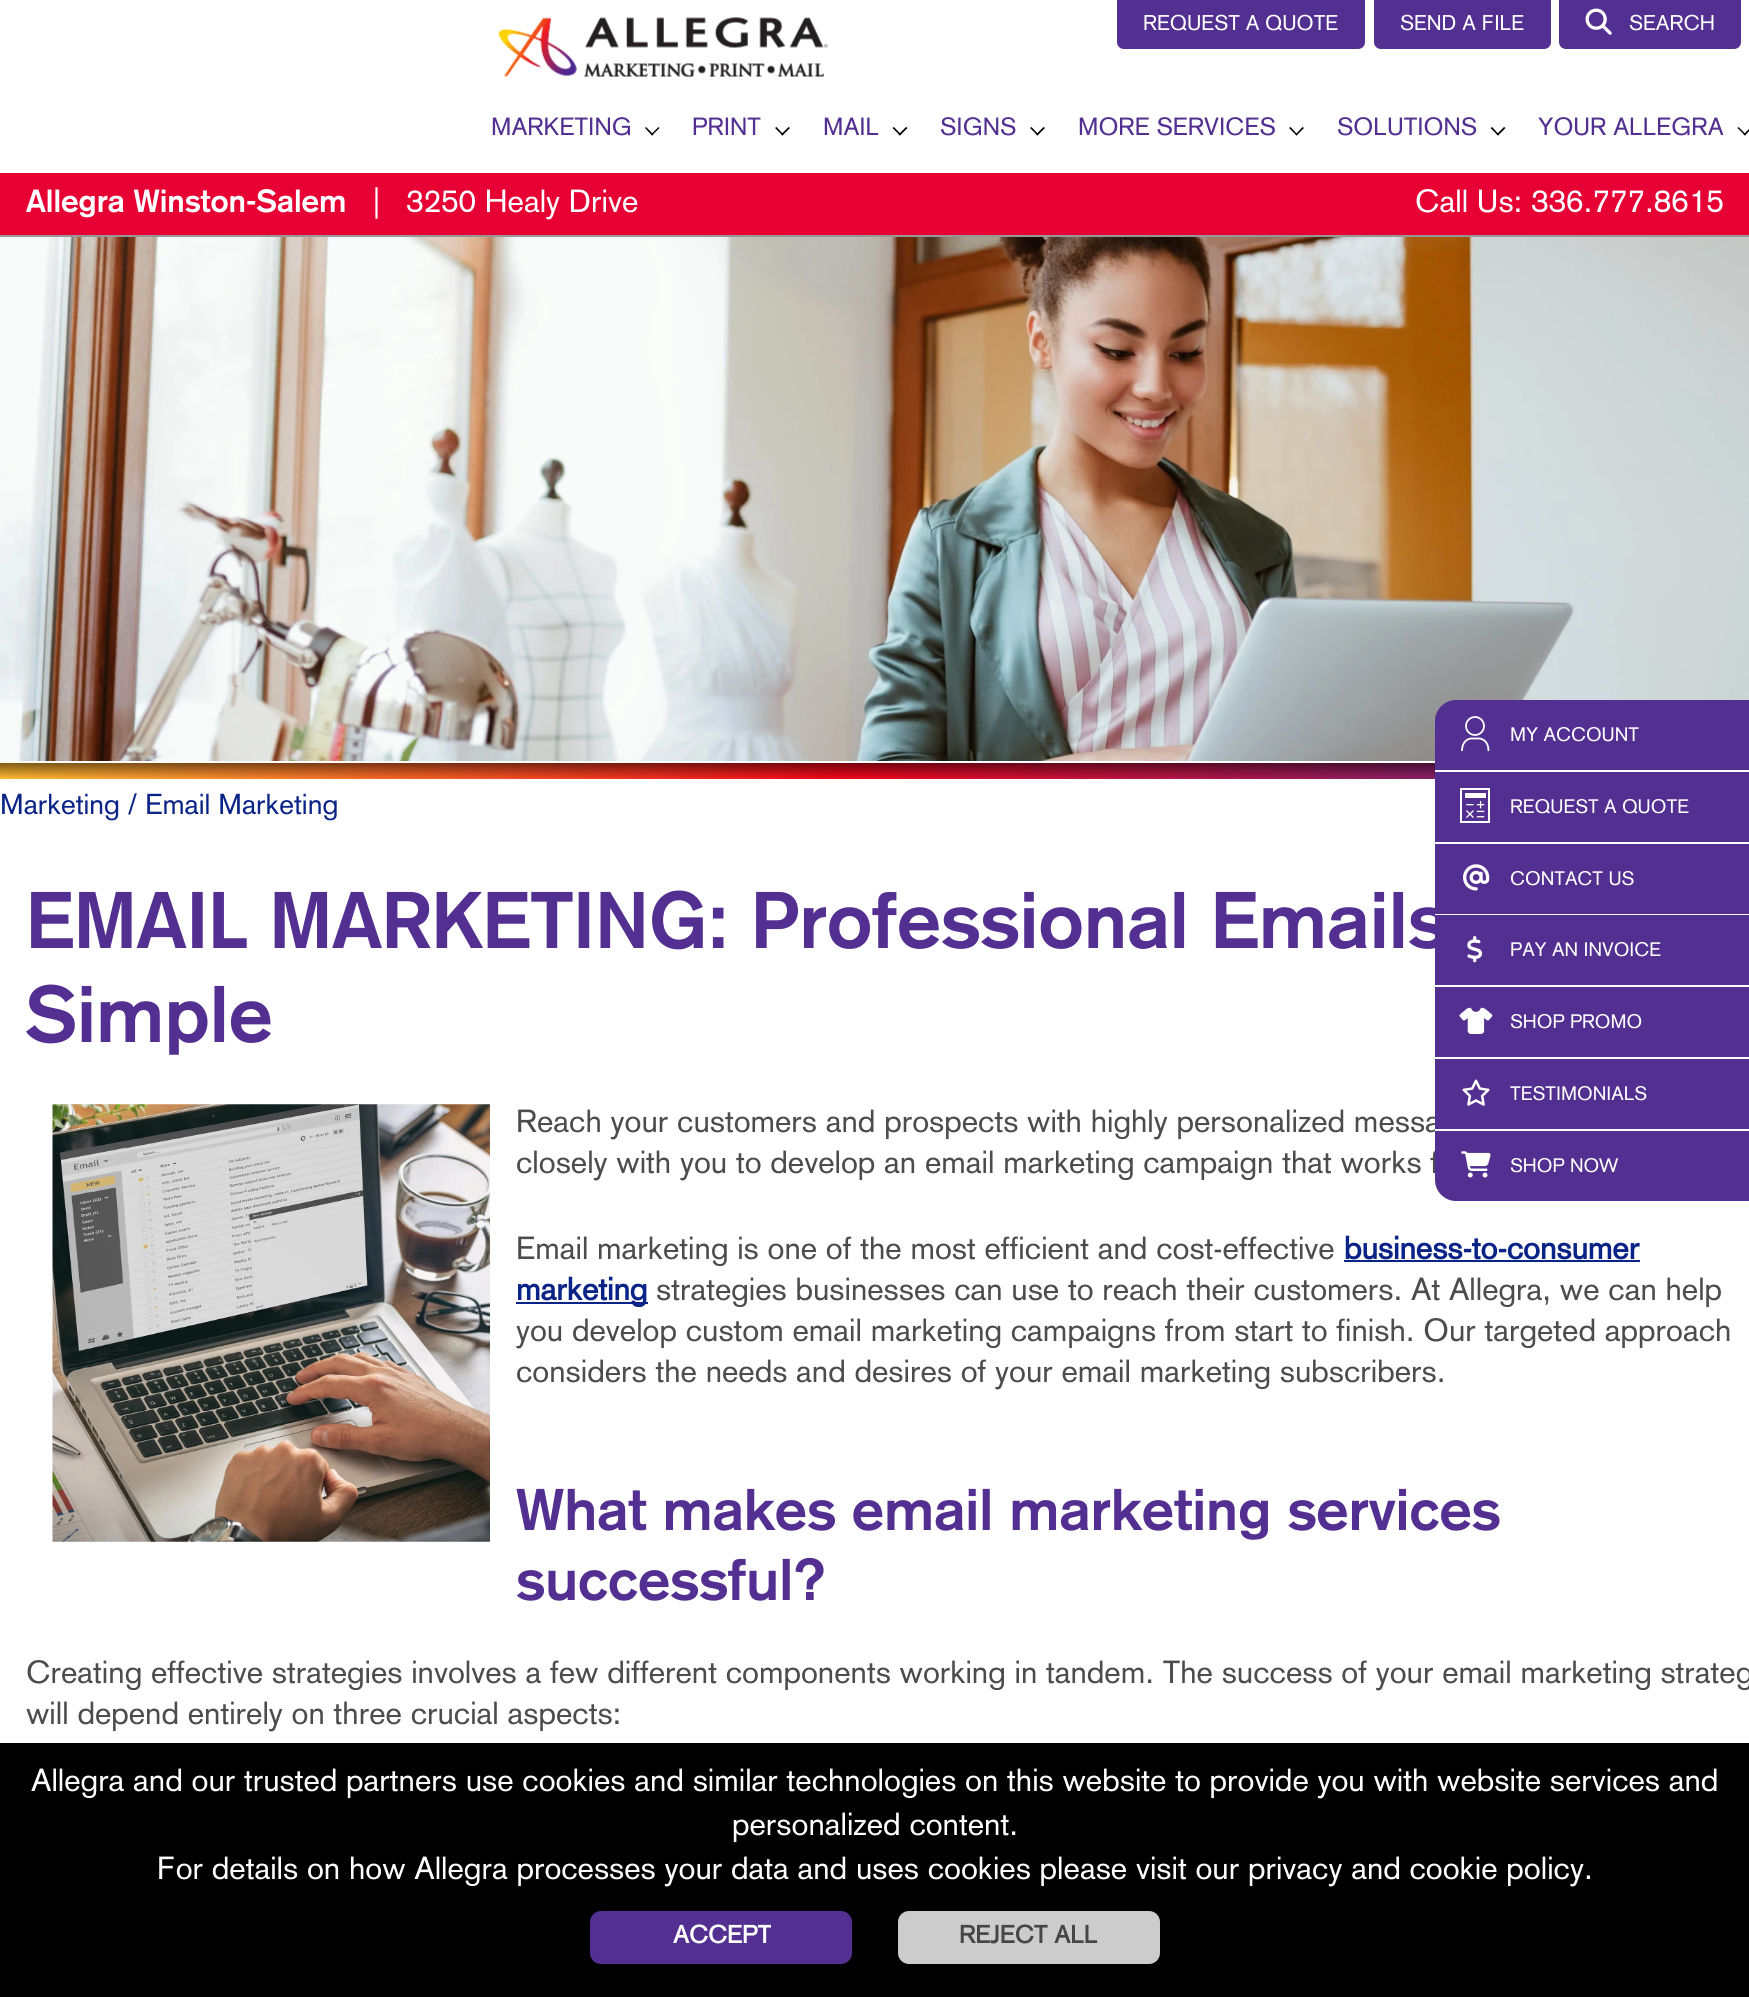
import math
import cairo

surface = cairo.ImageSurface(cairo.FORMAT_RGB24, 1749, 1997)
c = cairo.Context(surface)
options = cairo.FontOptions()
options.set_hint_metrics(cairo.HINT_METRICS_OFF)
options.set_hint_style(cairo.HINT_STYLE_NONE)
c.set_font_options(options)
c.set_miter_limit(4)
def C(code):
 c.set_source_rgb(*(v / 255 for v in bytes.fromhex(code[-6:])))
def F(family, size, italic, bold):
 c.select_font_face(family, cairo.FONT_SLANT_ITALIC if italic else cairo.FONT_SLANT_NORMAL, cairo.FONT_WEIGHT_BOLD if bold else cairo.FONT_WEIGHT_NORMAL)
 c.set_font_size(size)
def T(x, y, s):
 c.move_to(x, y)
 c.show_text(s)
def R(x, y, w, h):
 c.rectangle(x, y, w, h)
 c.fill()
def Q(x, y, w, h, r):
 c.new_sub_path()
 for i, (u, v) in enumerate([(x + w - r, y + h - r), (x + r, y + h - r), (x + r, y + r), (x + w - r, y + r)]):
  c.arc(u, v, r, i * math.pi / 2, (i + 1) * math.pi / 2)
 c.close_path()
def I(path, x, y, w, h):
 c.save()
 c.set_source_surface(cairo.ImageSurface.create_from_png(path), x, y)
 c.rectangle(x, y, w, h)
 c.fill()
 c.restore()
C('ffffff')
c.paint()
C('979797')
R(0,235,1749,2)
I('1.png',498,17,330,61)
C('522f91')
c.new_path()
c.move_to(1117,0)
c.line_to(1365,0)
c.line_to(1365,42)
c.curve_to(1365,46,1362,49,1358,49)
c.line_to(1124,49)
c.curve_to(1120,49,1117,46,1117,42)
c.close_path()
c.fill()
F('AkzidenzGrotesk',21,0,0)
C('ffffff')
T(1143,30,'REQUEST A QUOTE')
C('522f91')
c.new_path()
c.move_to(1374,0)
c.line_to(1551,0)
c.line_to(1551,42)
c.curve_to(1551,46,1548,49,1544,49)
c.line_to(1381,49)
c.curve_to(1377,49,1374,46,1374,42)
c.close_path()
c.fill()
C('ffffff')
T(1400,30,'SEND A FILE')
C('522f91')
c.new_path()
c.move_to(1559,0)
c.line_to(1741,0)
c.line_to(1741,42)
c.curve_to(1741,46,1738,49,1734,49)
c.line_to(1566,49)
c.curve_to(1562,49,1559,46,1559,42)
c.close_path()
c.fill()
I('2.png',1585,8,27,27)
C('ffffff')
T(1629,30,'SEARCH')
F('AkzidenzGrotesk',24.5,0,0)
C('522f91')
T(491,135,'MARKETING')
C('000000')
c.new_path()
c.move_to(658.5,127)
c.line_to(659.5,128)
c.line_to(652,135.5)
c.line_to(651,134.5)
c.close_path()
c.fill()
c.new_path()
c.move_to(646,127)
c.line_to(653.5,134.5)
c.line_to(652,135.5)
c.line_to(645,128)
c.close_path()
c.fill()
C('522f91')
T(692,135,'PRINT')
C('000000')
c.new_path()
c.move_to(788.5,127)
c.line_to(790,128)
c.line_to(782.5,135.5)
c.line_to(781,134.5)
c.close_path()
c.fill()
c.new_path()
c.move_to(776.5,127)
c.line_to(783.5,134.5)
c.line_to(782.5,135.5)
c.line_to(775,128)
c.close_path()
c.fill()
C('522f91')
T(823,135,'MAIL')
C('000000')
c.new_path()
c.move_to(906,127)
c.line_to(907.5,128)
c.line_to(900,135.5)
c.line_to(898.5,134.5)
c.close_path()
c.fill()
c.new_path()
c.move_to(894,127)
c.line_to(901,134.5)
c.line_to(900,135.5)
c.line_to(892.5,128)
c.close_path()
c.fill()
C('522f91')
T(940,135,'SIGNS')
C('000000')
c.new_path()
c.move_to(1043.5,127)
c.line_to(1045,128)
c.line_to(1037.5,135.5)
c.line_to(1036,134.5)
c.close_path()
c.fill()
c.new_path()
c.move_to(1031.5,127)
c.line_to(1038.5,134.5)
c.line_to(1037.5,135.5)
c.line_to(1030,128)
c.close_path()
c.fill()
C('522f91')
T(1078,135,'MORE SERVICES')
C('000000')
c.new_path()
c.move_to(1302.5,127)
c.line_to(1304,128)
c.line_to(1296.5,135.5)
c.line_to(1295.5,134.5)
c.close_path()
c.fill()
c.new_path()
c.move_to(1290.5,127)
c.line_to(1297.5,134.5)
c.line_to(1296.5,135.5)
c.line_to(1289,128)
c.close_path()
c.fill()
C('522f91')
T(1337,135,'SOLUTIONS')
C('000000')
c.new_path()
c.move_to(1504,127)
c.line_to(1505.5,128)
c.line_to(1498,135.5)
c.line_to(1496.5,134.5)
c.close_path()
c.fill()
c.new_path()
c.move_to(1492,127)
c.line_to(1499,134.5)
c.line_to(1498,135.5)
c.line_to(1490.5,128)
c.close_path()
c.fill()
C('522f91')
T(1538,135,'YOUR ALLEGRA')
C('000000')
c.new_path()
c.move_to(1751,127)
c.line_to(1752,128)
c.line_to(1745,135.5)
c.line_to(1743.5,134.5)
c.close_path()
c.fill()
c.new_path()
c.move_to(1738.5,127)
c.line_to(1746,134.5)
c.line_to(1745,135.5)
c.line_to(1737.5,128)
c.close_path()
c.fill()
C('e70033')
R(0,173,1749,62)
F('AkzidenzGrotesk',31.5,0,1)
C('ffffff')
T(26,212,'Allegra Winston-Salem')
F('AkzidenzGrotesk',31.5,0,0)
T(373,212,'|')
T(406,212,'3250 Healy Drive')
T(1415,212,'Call Us: 336.777.8615')
I('3.png',0,237,1749,524)
gradient = cairo.LinearGradient(0,771,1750,771)
gradient.add_color_stop_rgba(0,0.992,0.729,0.192,1)
gradient.add_color_stop_rgba(.48,0.937,0.024,0.102,1)
gradient.add_color_stop_rgba(1,0.322,0.184,0.569,1)
c.set_source(gradient)
R(0,763,1435,16)
gradient = cairo.LinearGradient(875,779,875,763)
gradient.add_color_stop_rgba(0,0,0,0,0)
gradient.add_color_stop_rgba(1,0,0,0,.5)
c.set_source(gradient)
R(0,763,1435,15)
F('AkzidenzGrotesk',28.4,0,0)
C('0a2387')
T(0,814,'Marketing / Email Marketing')
F('AkzidenzGrotesk',78.75,0,1)
C('522f91')
T(26,948,'EMAIL MARKETING: Professional Emails')
T(26,1042,'Simple')
I('4.png',52,1104,438,438)
F('AkzidenzGrotesk',31.5,0,0)
C('4c4c4c')
T(516,1132,'Reach your customers and prospects with highly personalized messa')
T(516,1173,'closely with you to develop an email marketing campaign that works f')
T(516,1259,'Email marketing is one of the most efficient and cost-effective')
F('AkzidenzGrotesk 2',31.5,0,1)
C('0a2387')
T(1344,1259,'business-to-consumer')
R(1344,1260,296,2)
R(516,1302,132,2)
T(516,1300,'marketing')
F('AkzidenzGrotesk',31.5,0,0)
C('4c4c4c')
T(656,1300,'strategies businesses can use to reach their customers. At Allegra, we can help')
T(516,1341,'you develop custom email marketing campaigns from start to finish. Our targeted approach')
T(516,1382,'considers the needs and desires of your email marketing subscribers.')
F('AkzidenzGrotesk',57.75,0,1)
C('522f91')
T(516,1530,'What makes email marketing services')
T(516,1600,'successful?')
F('AkzidenzGrotesk',31.5,0,0)
C('4c4c4c')
T(26,1683,'Creating effective strategies involves a few different components working in tandem. The success of your email marketing strateg')
T(26,1724,'will depend entirely on three crucial aspects:')
C('522f91')
c.new_path()
c.move_to(1456,700)
c.line_to(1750,700)
c.line_to(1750,1201)
c.line_to(1456,1201)
c.curve_to(1444.5,1201,1435,1191.5,1435,1180)
c.line_to(1435,721)
c.curve_to(1435,709.5,1444.5,700,1456,700)
c.close_path()
c.fill()
C('ffffff')
R(1435,770,314,2)
c.arc(1475,726,9,0,2 * math.pi)
c.set_line_width(1.8)
c.stroke()
c.new_path()
c.move_to(1488.5,751)
c.curve_to(1488.5,745.5,1486.5,740,1480,738.5)
c.line_to(1473.5,738.5)
c.move_to(1462,751)
c.curve_to(1462,745.5,1464,740,1470.5,738.5)
c.line_to(1477,738.5)
c.stroke()
F('AkzidenzGrotesk',19.25,0,0)
T(1510,741,'MY ACCOUNT')
R(1435,842,314,2)
I('5.png',1460,788,30,35)
T(1510,813,'REQUEST A QUOTE')
R(1435,914,314,1)
I('6.png',1463,864,27,27)
T(1510,885,'CONTACT US')
R(1435,985,314,2)
I('7.png',1467,936,16,27)
T(1510,956,'PAY AN INVOICE')
R(1435,1057,314,2)
I('8.png',1459,1007,34,27)
T(1510,1028,'SHOP PROMO')
R(1435,1129,314,2)
I('9.png',1462,1079,28,27)
T(1510,1100,'TESTIMONIALS')
I('10.png',1461,1151,30,27)
T(1510,1172,'SHOP NOW')
C('000000')
R(0,1743,1749,254)
F('AkzidenzGrotesk',31.5,0,0)
C('ffffff')
T(31,1791,'Allegra and our trusted partners use cookies and similar technologies on this website to provide you with website services and')
T(732,1835,'personalized content.')
T(157,1879,'For details on how Allegra processes your data and uses cookies please visit our privacy and cookie policy.')
C('522f91')
Q(590,1911,262,53,11)
c.fill()
F('AkzidenzGrotesk 2',24.5,0,1)
C('ffffff')
T(673,1943,'ACCEPT')
C('cccccc')
Q(898,1911,262,53,11)
c.fill()
C('464646')
T(959,1943,'REJECT ALL')
surface.write_to_png('o.png')
